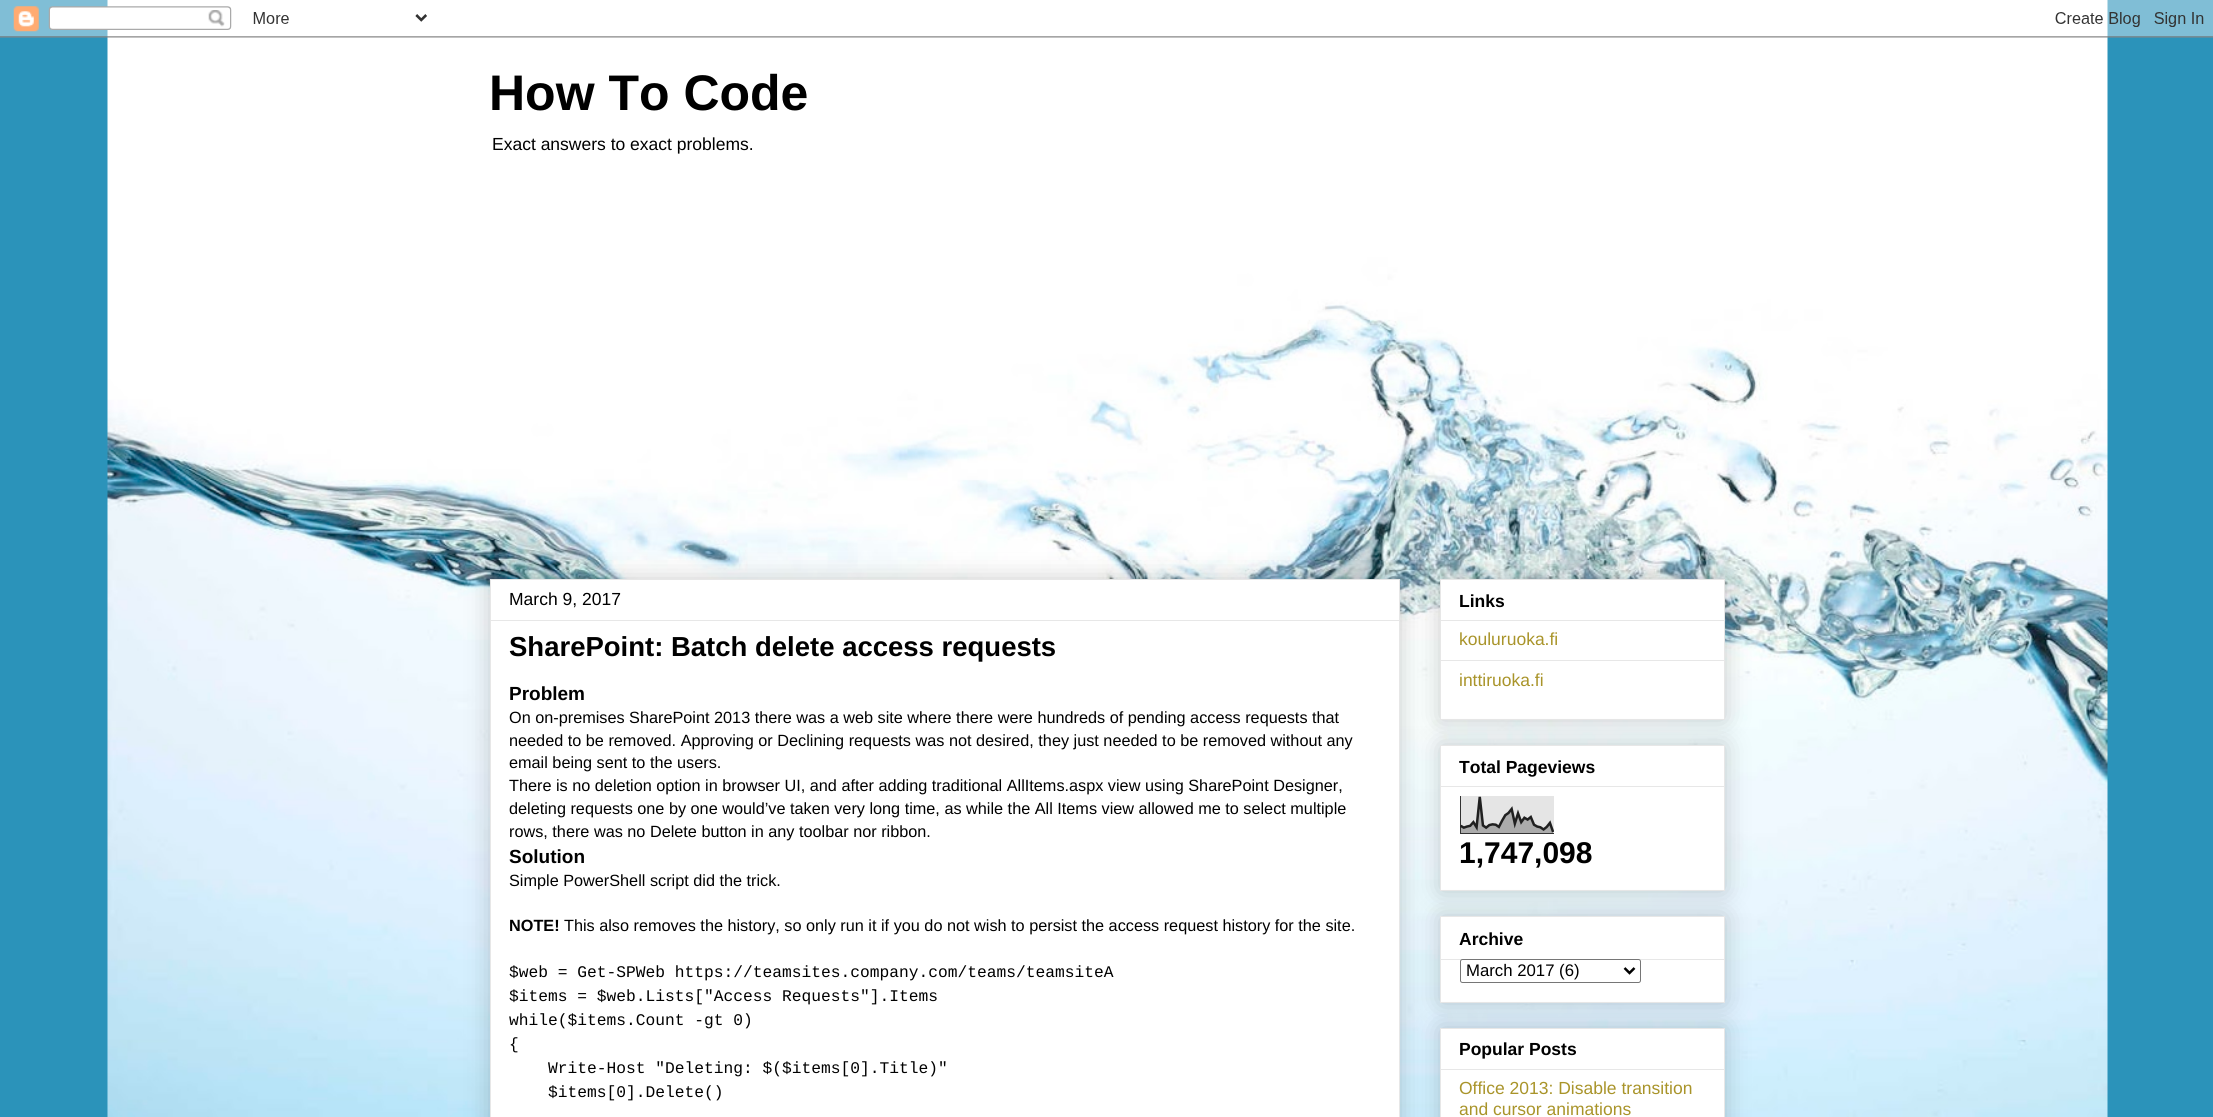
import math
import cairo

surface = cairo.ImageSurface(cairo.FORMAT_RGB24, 2213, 1117)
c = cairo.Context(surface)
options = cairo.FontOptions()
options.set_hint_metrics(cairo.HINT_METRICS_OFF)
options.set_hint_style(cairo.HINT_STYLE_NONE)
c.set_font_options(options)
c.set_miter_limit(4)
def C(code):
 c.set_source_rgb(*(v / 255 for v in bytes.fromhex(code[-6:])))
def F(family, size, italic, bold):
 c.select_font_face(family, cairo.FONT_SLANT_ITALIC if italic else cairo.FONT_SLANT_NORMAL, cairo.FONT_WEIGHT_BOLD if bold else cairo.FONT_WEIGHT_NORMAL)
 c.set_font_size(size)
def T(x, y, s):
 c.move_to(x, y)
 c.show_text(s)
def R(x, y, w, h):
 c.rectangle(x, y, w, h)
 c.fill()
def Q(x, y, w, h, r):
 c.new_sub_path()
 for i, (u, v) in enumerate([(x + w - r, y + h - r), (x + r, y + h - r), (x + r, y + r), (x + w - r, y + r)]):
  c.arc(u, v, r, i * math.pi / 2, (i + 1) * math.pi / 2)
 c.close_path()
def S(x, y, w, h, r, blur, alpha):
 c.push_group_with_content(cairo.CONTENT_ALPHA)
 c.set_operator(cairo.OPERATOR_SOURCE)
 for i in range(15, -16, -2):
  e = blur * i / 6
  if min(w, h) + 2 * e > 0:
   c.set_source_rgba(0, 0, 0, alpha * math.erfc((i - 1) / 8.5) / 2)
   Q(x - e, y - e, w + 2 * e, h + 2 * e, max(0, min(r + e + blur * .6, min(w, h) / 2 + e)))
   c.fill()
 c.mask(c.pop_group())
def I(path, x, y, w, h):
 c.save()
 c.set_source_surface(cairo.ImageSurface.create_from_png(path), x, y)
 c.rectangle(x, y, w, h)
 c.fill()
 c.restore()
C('2b93ba')
c.paint()
I('1.png',107,0,2001,1117)
I('2.png',0,0,2213,38)
F('Liberation Sans',50,0,1)
C('000000')
T(489,110,'How To Code')
F('Liberation Sans',17.5,0,0)
T(492,150,'Exact answers to exact problems.')
C('000000')
S(490,579,910,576,0,12.5,.2)
C('ffffff')
c.rectangle(490.5,579.5,909,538)
c.fill_preserve()
C('e7e7e7')
c.set_line_width(1)
c.stroke()
C('000000')
T(509,605,'March 9, 2017')
C('e7e7e7')
R(491,620,908,1)
F('Liberation Sans',27.5,0,1)
C('000000')
T(509,656,'SharePoint: Batch delete access requests')
F('Liberation Sans',19,0,1)
T(509,700,'Problem')
F('Liberation Sans',16.25,0,0)
T(509,723,'On on-premises SharePoint 2013 there was a web site where there were hundreds of pending access requests that')
T(509,746,'needed to be removed. Approving or Declining requests was not desired, they just needed to be removed without any')
T(509,768,'email being sent to the users.')
T(509,791,'There is no deletion option in browser UI, and after adding traditional AllItems.aspx view using SharePoint Designer,')
T(509,814,'deleting requests one by one would’ve taken very long time, as while the All Items view allowed me to select multiple')
T(509,837,'rows, there was no Delete button in any toolbar nor ribbon.')
F('Liberation Sans',19,0,1)
T(509,863,'Solution')
F('Liberation Sans',16.25,0,0)
T(509,886,'Simple PowerShell script did the trick.')
F('Liberation Sans',16.25,0,1)
T(509,931,'NOTE!')
F('Liberation Sans',16.25,0,0)
T(564,931,'This also removes the history, so only run it if you do not wish to persist the access request history for the site.')
F('Liberation Mono',16.25,0,0)
T(509,977,'$web = Get-SPWeb https://teamsites.company.com/teams/teamsiteA')
T(509,1001,'$items = $web.Lists["Access Requests"].Items')
T(509,1025,'while($items.Count -gt 0)')
T(509,1049,'{')
T(548,1073,'Write-Host "Deleting: $($items[0].Title)"')
T(548,1097,'$items[0].Delete()')
C('000000')
S(1440,579,285,141,0,12.5,.2)
C('ffffff')
c.rectangle(1440.5,579.5,284,140)
c.fill_preserve()
C('e7e7e7')
c.stroke()
F('Liberation Sans',17.5,0,1)
C('000000')
T(1459,607,'Links')
C('e7e7e7')
R(1441,620,283,1)
F('Liberation Sans',17.5,0,0)
C('a9942a')
T(1459,645,'kouluruoka.fi')
C('e7e7e7')
R(1441,660,283,1)
C('a9942a')
T(1459,686,'inttiruoka.fi')
C('000000')
S(1440,745,285,146,0,12.5,.2)
C('ffffff')
c.rectangle(1440.5,745.5,284,145)
c.fill_preserve()
C('e7e7e7')
c.stroke()
F('Liberation Sans',17.5,0,1)
C('000000')
T(1459,773,'Total Pageviews')
C('e7e7e7')
R(1441,786,283,1)
I('3.png',1460,796,94,38)
F('Liberation Sans',30,0,1)
C('000000')
T(1459,863,'1,747,098')
C('000000')
S(1440,916,285,87,0,12.5,.2)
C('ffffff')
c.rectangle(1440.5,916.5,284,86)
c.fill_preserve()
C('e7e7e7')
c.stroke()
F('Liberation Sans',17.5,0,1)
C('000000')
T(1459,945,'Archive')
C('e7e7e7')
R(1441,959,283,1)
C('ffffff')
Q(1460.5,959.5,180,23,2)
c.fill_preserve()
C('767676')
c.stroke()
c.new_path()
c.move_to(1624.5,968)
c.line_to(1629.5,973)
c.line_to(1634.5,968)
C('000000')
c.set_line_width(2.5)
c.stroke()
F('Liberation Sans',16.75,0,0)
T(1466,976,'March 2017 (6)')
C('000000')
S(1440,1028,285,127,0,12.5,.2)
C('ffffff')
c.rectangle(1440.5,1028.5,284,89)
c.fill_preserve()
C('e7e7e7')
c.set_line_width(1)
c.stroke()
F('Liberation Sans',17.5,0,1)
C('000000')
T(1459,1055,'Popular Posts')
C('e7e7e7')
R(1441,1069,283,1)
F('Liberation Sans',17.5,0,0)
C('a9942a')
T(1459,1094,'Office 2013: Disable transition')
T(1459,1115,'and cursor animations')
surface.write_to_png('o.png')
